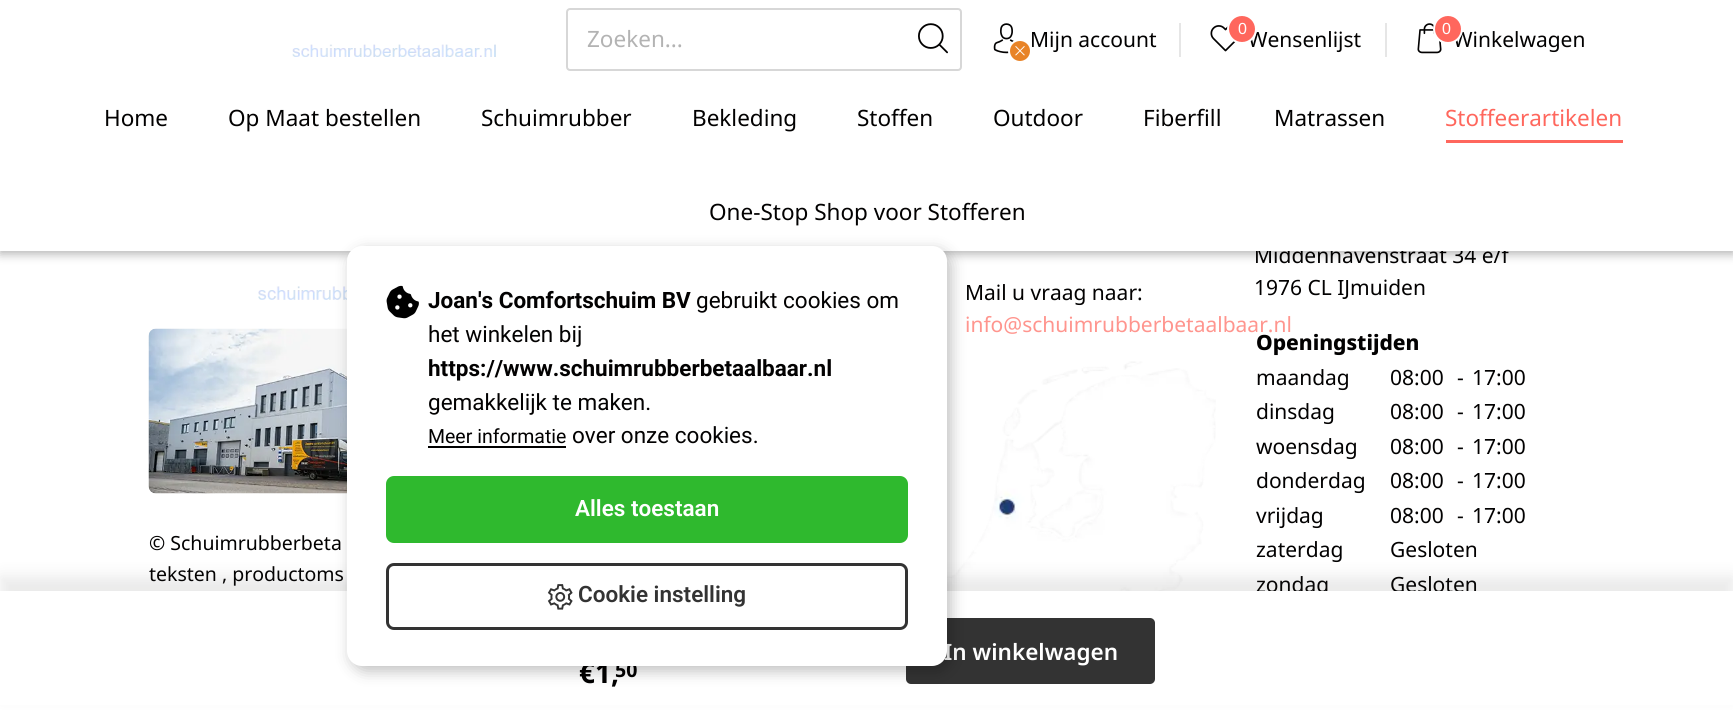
import math
import cairo

surface = cairo.ImageSurface(cairo.FORMAT_RGB24, 1733, 710)
c = cairo.Context(surface)
options = cairo.FontOptions()
options.set_hint_metrics(cairo.HINT_METRICS_OFF)
options.set_hint_style(cairo.HINT_STYLE_NONE)
c.set_font_options(options)
c.set_miter_limit(4)
def C(code):
 c.set_source_rgb(*(v / 255 for v in bytes.fromhex(code[-6:])))
def F(family, size, italic, bold):
 c.select_font_face(family, cairo.FONT_SLANT_ITALIC if italic else cairo.FONT_SLANT_NORMAL, cairo.FONT_WEIGHT_BOLD if bold else cairo.FONT_WEIGHT_NORMAL)
 c.set_font_size(size)
def T(x, y, s):
 c.move_to(x, y)
 c.show_text(s)
def R(x, y, w, h):
 c.rectangle(x, y, w, h)
 c.fill()
def Q(x, y, w, h, r):
 c.new_sub_path()
 for i, (u, v) in enumerate([(x + w - r, y + h - r), (x + r, y + h - r), (x + r, y + r), (x + w - r, y + r)]):
  c.arc(u, v, r, i * math.pi / 2, (i + 1) * math.pi / 2)
 c.close_path()
def S(x, y, w, h, r, blur, alpha):
 c.push_group_with_content(cairo.CONTENT_ALPHA)
 c.set_operator(cairo.OPERATOR_SOURCE)
 for i in range(15, -16, -2):
  e = blur * i / 6
  if min(w, h) + 2 * e > 0:
   c.set_source_rgba(0, 0, 0, alpha * math.erfc((i - 1) / 8.5) / 2)
   Q(x - e, y - e, w + 2 * e, h + 2 * e, max(0, min(r + e + blur * .6, min(w, h) / 2 + e)))
   c.fill()
 c.mask(c.pop_group())
def I(path, x, y, w, h):
 c.save()
 c.set_source_surface(cairo.ImageSurface.create_from_png(path), x, y)
 c.rectangle(x, y, w, h)
 c.fill()
 c.restore()
C('ffffff')
c.paint()
C('000000')
S(0,3,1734,251,0,5,.3)
F('Noto Sans',21,0,0)
C('020101')
T(1254,263,'Middenhavenstraat 34 e/f')
C('ffffff')
R(0,0,1733,251)
Q(567,9,394,61,3)
C('d7d7d7')
c.stroke()
F('Noto Sans',22.5,0,0)
C('b3b3b3')
T(587,47,'Zoeken...')
I('1.png',918,23,30,31)
I('2.png',993,23,21,31)
C('e88327')
c.arc(1020,51,11,0,2 * math.pi)
c.fill_preserve()
C('ffffff')
c.stroke()
I('3.png',1015,46,10,10)
F('Noto Sans',21,0,0)
C('020101')
T(1030,47,'Mijn account')
C('e6e6e6')
R(1179,23,2,34)
I('4.png',1210,25,26,27)
C('020101')
T(1248,47,'Wensenlijst')
C('ff675d')
c.new_path()
c.arc(1242,29,14,0,2 * math.pi)
c.fill_preserve()
C('ffffff')
c.stroke()
F('Liberation Sans',16,0,0)
T(1238,34,'0')
C('e6e6e6')
R(1385,23,2,34)
I('5.png',1417,23,25,31)
F('Noto Sans',21,0,0)
C('020101')
T(1453,47,'Winkelwagen')
C('ff675d')
c.new_path()
c.arc(1448,29,14,0,2 * math.pi)
c.fill_preserve()
C('ffffff')
c.stroke()
F('Liberation Sans',16,0,0)
T(1442,34,'0')
I('6.png',292,44,204,13)
F('Noto Sans',22.5,0,0)
C('020101')
T(104,126,'Home')
T(228,126,'Op Maat bestellen')
T(481,126,'Schuimrubber')
T(692,126,'Bekleding')
T(857,126,'Stoffen')
T(993,126,'Outdoor')
T(1143,126,'Fiberfill')
T(1274,126,'Matrassen')
C('ff675d')
T(1445,126,'Stoffeerartikelen')
R(1446,140,177,3)
C('020101')
T(709,220,'One-Stop Shop voor Stofferen')
F('Noto Sans',21,0,0)
T(965,300,'Mail u vraag naar:')
C('ff958e')
T(965,332,'info@schuimrubberbetaalbaar.nl')
I('7.png',947,361,269,230)
C('020101')
T(1254,295,'1976 CL IJmuiden')
F('Noto Sans ExtraBold',21,0,0)
T(1256,350,'Openingstijden')
F('Noto Sans',21,0,0)
T(1256,385,'maandag')
T(1390,385,'08:00')
T(1457,385,'-')
T(1472,385,'17:00')
T(1256,419,'dinsdag')
T(1390,419,'08:00')
T(1457,419,'-')
T(1472,419,'17:00')
T(1256,454,'woensdag')
T(1390,454,'08:00')
T(1457,454,'-')
T(1472,454,'17:00')
T(1256,488,'donderdag')
T(1390,488,'08:00')
T(1457,488,'-')
T(1472,488,'17:00')
T(1256,523,'vrijdag')
T(1390,523,'08:00')
T(1457,523,'-')
T(1472,523,'17:00')
T(1256,557,'zaterdag')
T(1390,557,'Gesloten')
T(1256,592,'zondag')
T(1390,592,'Gesloten')
I('8.png',258,286,89,14)
I('9.png',148,328,199,166)
F('Noto Sans',19.5,0,0)
T(149,550,'© Schuimrubberbeta')
T(149,581,'teksten , productoms')
C('31312f')
S(0,576,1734,120,0,7.5,.1)
C('ffffff')
R(0,591,1733,114)
C('333333')
Q(906,618,249,66,5)
c.fill()
F('Noto Sans SemiBold',22.5,0,0)
C('ffffff')
T(944,660,'In winkelwagen')
F('Noto Sans',28,0,1)
C('020101')
T(579,683,'€')
T(595,683,'1,')
F('Noto Sans',19.5,0,1)
T(615,677,'50')
C('000000')
S(351,251,600,420,15,7.5,.25)
C('ffffff')
Q(347,246,600,420,15)
c.fill()
I('10.png',386,285,33,34)
F('Roboto',22.5,0,1)
C('020101')
T(428,308,'Joan\'s Comfortschuim BV')
F('Roboto',22.5,0,0)
T(696,308,'gebruikt cookies om')
T(428,342,'het winkelen bij')
F('Roboto',22.5,0,1)
T(428,376,'https://www.schuimrubberbetaalbaar.nl')
F('Roboto',22.5,0,0)
T(428,410,'gemakkelijk te maken.')
F('Roboto',19.5,0,0)
T(428,443,'Meer informatie')
C('000000')
R(428,446,138,2)
F('Roboto',22.5,0,0)
C('020101')
T(572,443,'over onze cookies.')
C('2fb92e')
Q(387.5,477.5,519,64,6.5)
c.fill_preserve()
c.set_line_width(3)
c.stroke()
F('Roboto SemiBold',22.5,0,0)
C('ffffff')
T(575,516,'Alles toestaan')
Q(387.5,564.5,519,64,6.5)
C('333333')
c.stroke()
I('11.png',547,584,26,26)
T(578,602,'Cookie instelling')
surface.write_to_png('o.png')
